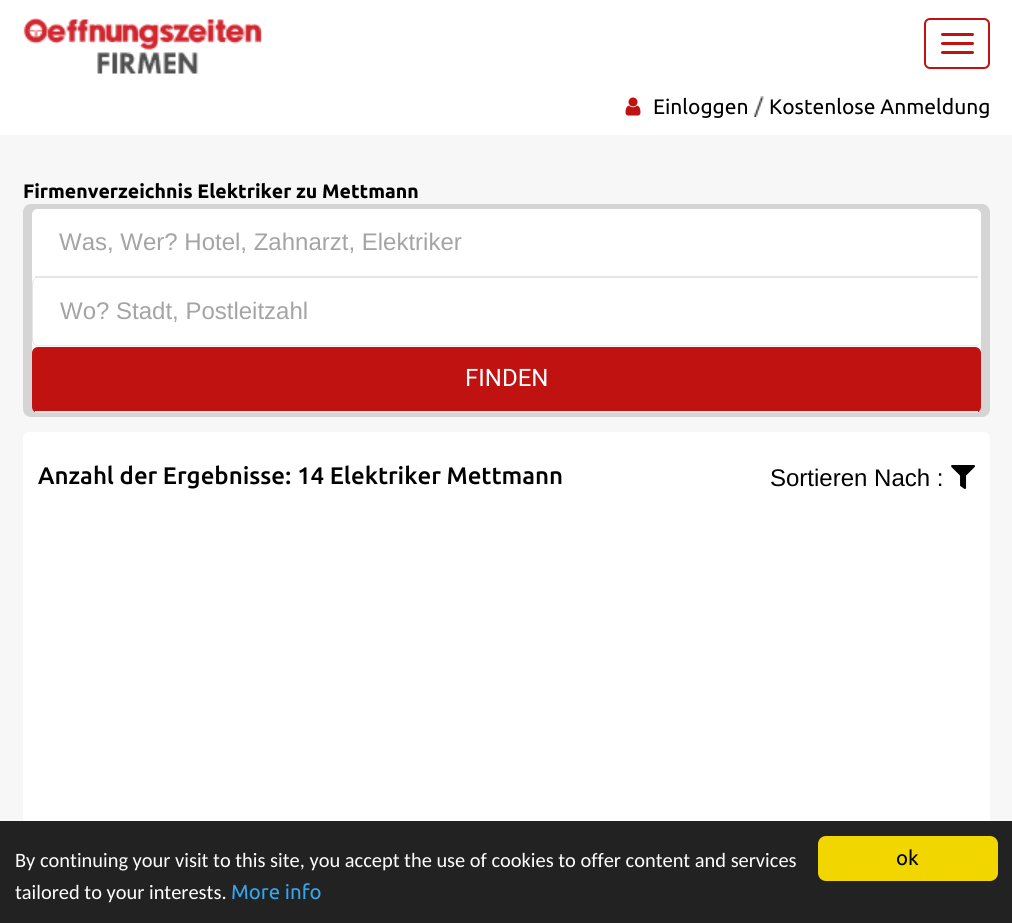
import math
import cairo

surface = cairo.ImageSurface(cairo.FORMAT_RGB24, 1012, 923)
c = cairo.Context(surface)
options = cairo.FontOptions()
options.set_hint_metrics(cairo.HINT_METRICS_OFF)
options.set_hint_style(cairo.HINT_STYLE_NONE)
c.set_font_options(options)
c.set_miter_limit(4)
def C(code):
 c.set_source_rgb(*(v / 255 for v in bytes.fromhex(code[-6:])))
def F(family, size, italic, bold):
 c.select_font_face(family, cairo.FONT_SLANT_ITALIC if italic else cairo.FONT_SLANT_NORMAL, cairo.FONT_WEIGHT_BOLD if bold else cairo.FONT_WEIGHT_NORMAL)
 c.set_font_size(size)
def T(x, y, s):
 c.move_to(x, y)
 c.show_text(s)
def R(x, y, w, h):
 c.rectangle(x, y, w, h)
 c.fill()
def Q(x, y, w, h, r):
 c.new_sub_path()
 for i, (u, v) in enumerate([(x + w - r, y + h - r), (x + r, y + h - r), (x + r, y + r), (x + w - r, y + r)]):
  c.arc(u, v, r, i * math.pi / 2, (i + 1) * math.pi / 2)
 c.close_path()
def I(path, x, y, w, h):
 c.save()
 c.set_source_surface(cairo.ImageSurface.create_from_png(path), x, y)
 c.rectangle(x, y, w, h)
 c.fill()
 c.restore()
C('f7f7f7')
c.paint()
C('ffffff')
R(0,0,1012,135)
I('1.png',23,17,239,57)
Q(925,19,64,49,5)
C('c11212')
c.stroke()
Q(941,33,33,3,1.5)
c.fill()
Q(941,42,33,3,1.5)
c.fill()
Q(941,51,33,3,1.5)
c.fill()
I('2.png',625,97,16,19)
F('Ubuntu',21,0,0)
C('000000')
T(653,114,'Einloggen')
I('3.png',753,96,11,21)
T(769,114,'Kostenlose Anmeldung')
F('Ubuntu',19.5,0,1)
T(23,198,'Firmenverzeichnis Elektriker zu Mettmann')
C('d5d5d5')
Q(23,204,967,213,8)
c.fill()
C('ffffff')
Q(32,209,949,204,6)
c.fill()
Q(32,209,949,69,6)
c.fill()
C('e6e6e6')
R(35,276,943,2)
F('Liberation Sans',24,0,0)
C('a4a4a4')
T(59,250,'Was, Wer? Hotel, Zahnarzt, Elektriker')
C('e6e6e6')
c.set_fill_rule(cairo.FILL_RULE_EVEN_ODD)
c.new_path()
c.move_to(38,278)
c.line_to(975,278)
c.curve_to(978,278,981,280,981,284)
c.line_to(981,340)
c.curve_to(981,344,978,346,975,346)
c.line_to(38,346)
c.curve_to(34,346,32,344,32,340)
c.line_to(32,284)
c.curve_to(32,280,34,278,38,278)
c.close_path()
c.move_to(38,278)
c.line_to(975,278)
c.curve_to(978,278,981,280,981,284)
c.line_to(981,340)
c.curve_to(981,343,978,345,975,345)
c.line_to(38,345)
c.curve_to(35,345,33,343,33,340)
c.line_to(33,284)
c.curve_to(33,280,35,278,38,278)
c.close_path()
c.fill()
C('a4a4a4')
T(60,319,'Wo? Stadt, Postleitzahl')
C('c11212')
Q(32,347,949,66,6)
c.fill()
C('e6e6e6')
R(35,411,943,2)
F('Roboto',24,0,0)
C('ffffff')
T(465,386,'FINDEN')
Q(23,432,967,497,6)
c.fill()
F('Ubuntu Medium',24,0,0)
C('000000')
T(38,484,'Anzahl der Ergebnisse: 14 Elektriker Mettmann')
F('Liberation Sans',24,0,0)
T(770,486,'Sortieren Nach :')
I('4.png',951,465,24,24)
C('222222')
R(0,821,1012,102)
F('Carlito',20.4,0,0)
C('ffffff')
T(15,867,'By continuing your visit to this site, you accept the use of cookies to offer content and services')
T(15,899,'tailored to your interests.')
F('Ubuntu',20.4,0,0)
C('31a8f0')
T(231,899,'More info')
C('f1d600')
Q(818,836,180,45,8)
c.fill()
C('000000')
T(896,865,'ok')
surface.write_to_png('o.png')
